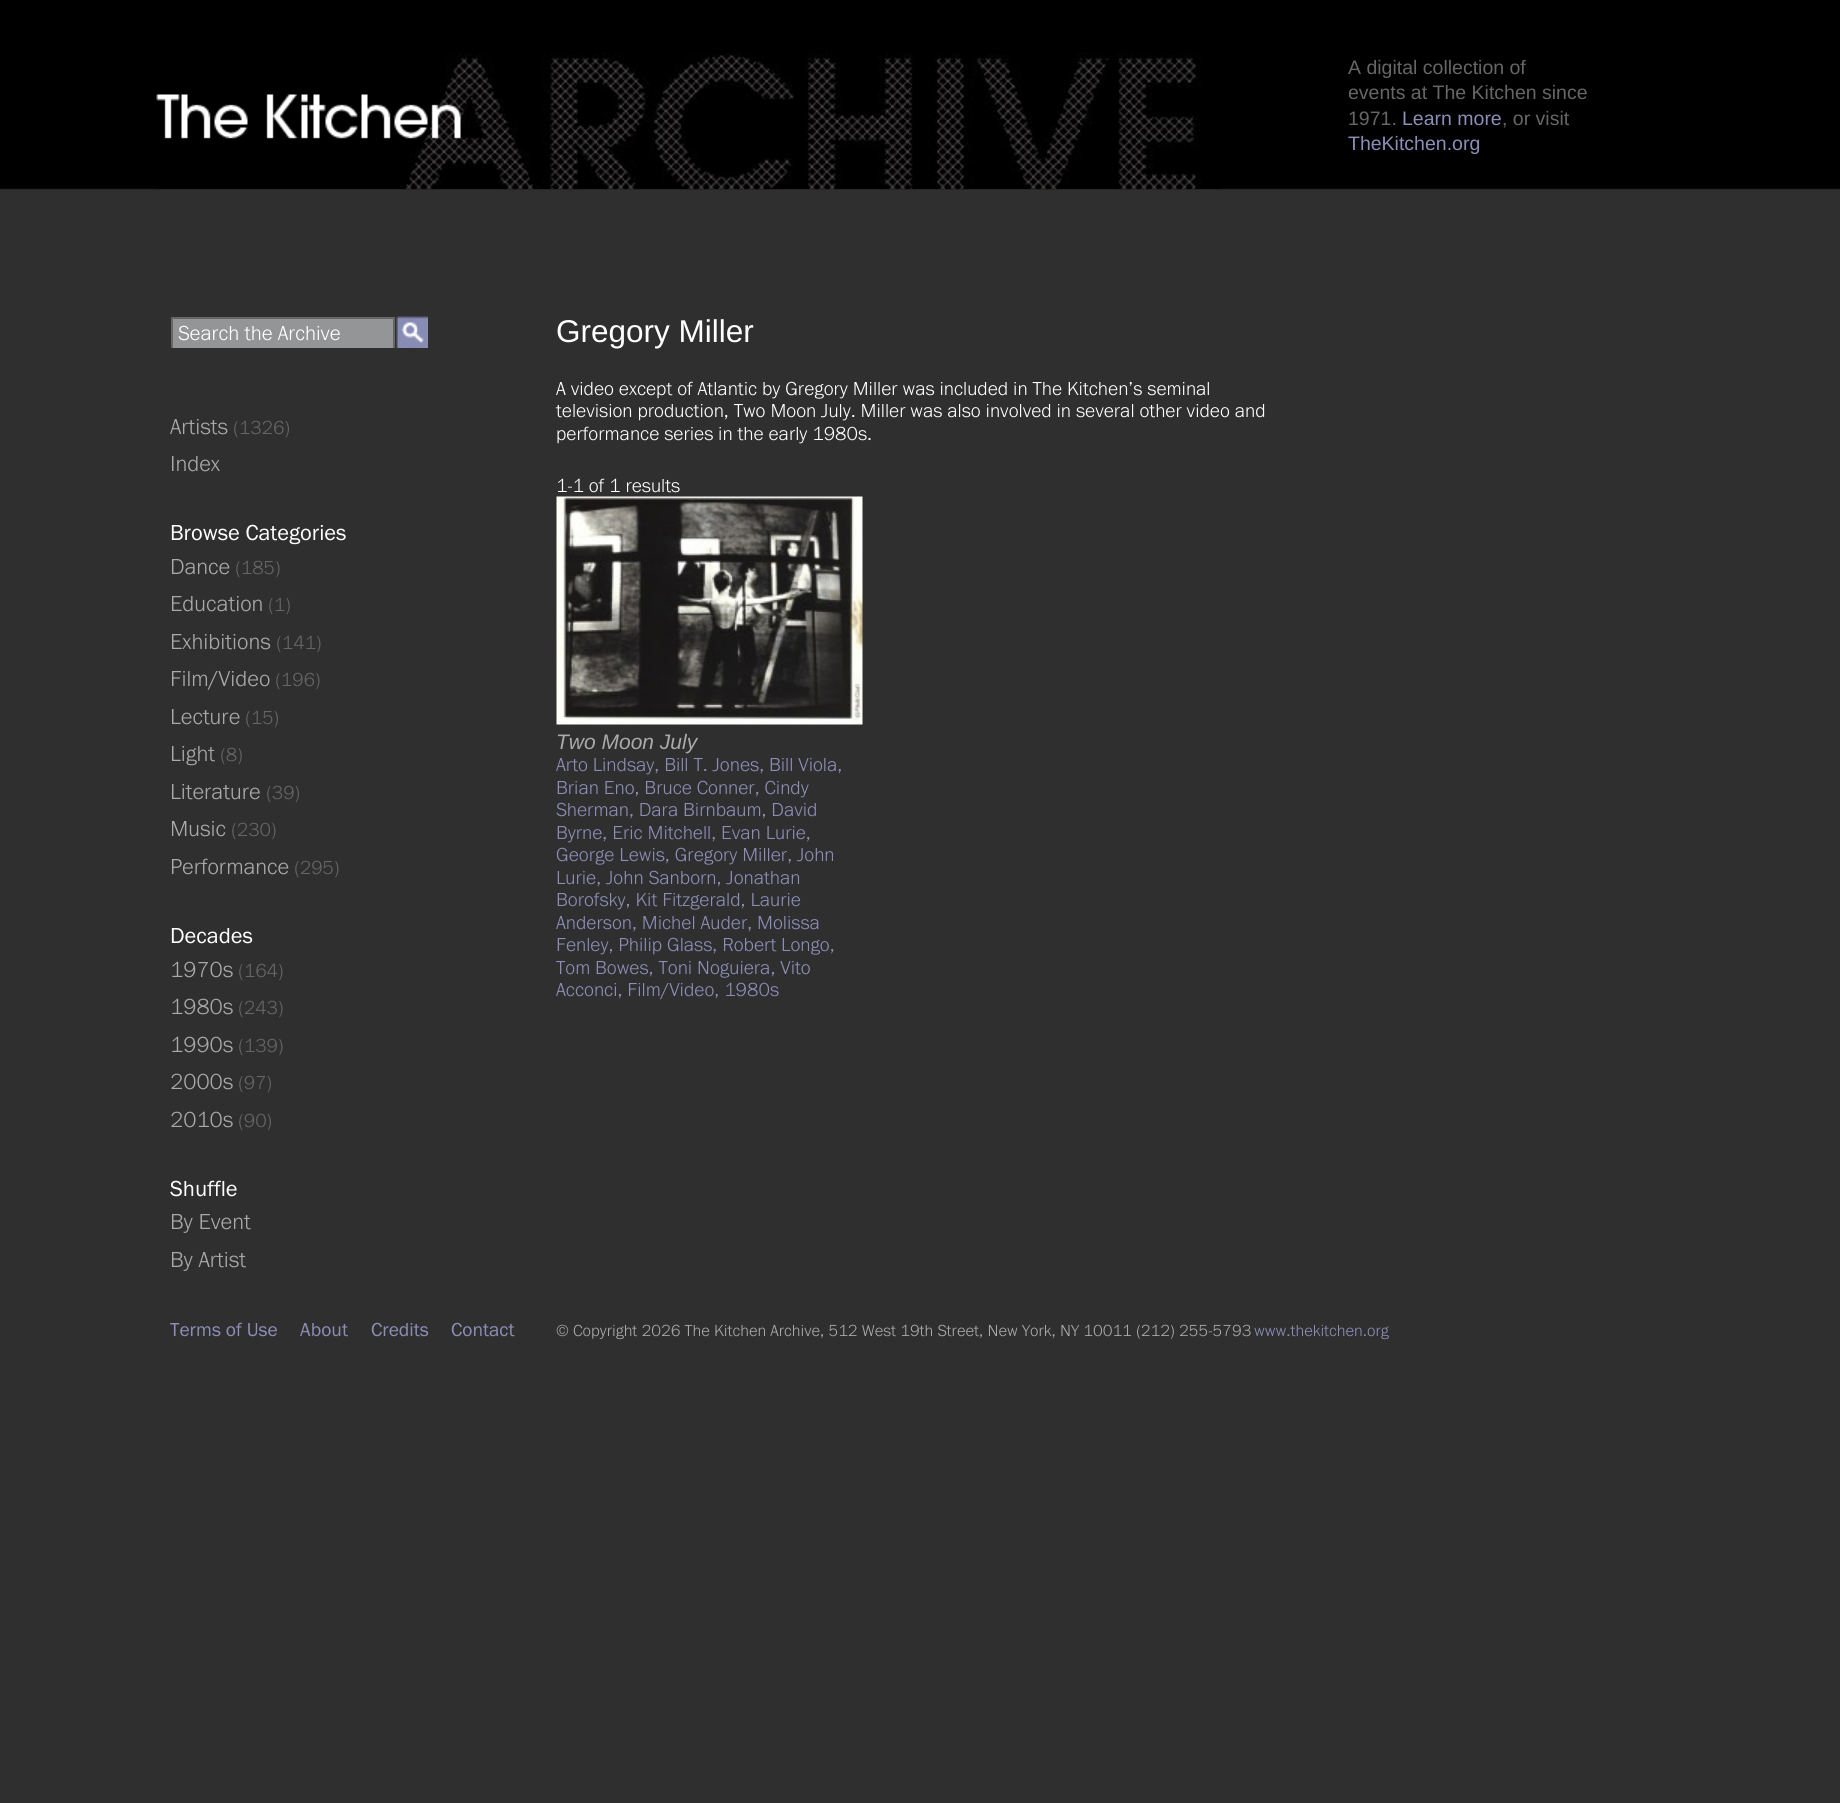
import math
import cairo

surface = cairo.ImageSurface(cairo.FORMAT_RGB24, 1840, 1803)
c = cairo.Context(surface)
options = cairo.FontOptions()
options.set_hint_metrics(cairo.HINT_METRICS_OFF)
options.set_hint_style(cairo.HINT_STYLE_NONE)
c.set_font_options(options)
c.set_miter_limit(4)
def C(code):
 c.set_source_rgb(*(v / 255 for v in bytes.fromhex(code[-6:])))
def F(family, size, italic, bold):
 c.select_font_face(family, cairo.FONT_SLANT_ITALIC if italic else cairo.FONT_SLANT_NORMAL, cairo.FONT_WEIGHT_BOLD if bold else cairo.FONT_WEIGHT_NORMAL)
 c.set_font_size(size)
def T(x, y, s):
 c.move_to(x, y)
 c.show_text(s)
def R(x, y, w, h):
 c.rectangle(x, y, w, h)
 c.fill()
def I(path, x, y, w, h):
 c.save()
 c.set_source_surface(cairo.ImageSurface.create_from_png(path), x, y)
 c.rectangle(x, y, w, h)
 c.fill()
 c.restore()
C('2f2f2f')
c.paint()
I('1.png',0,0,1840,190)
I('2.png',157,52,1064,137)
I('3.png',156,94,305,45)
F('Liberation Sans',19.5,0,0)
C('666666')
T(1348,74,'A digital collection of')
T(1348,99,'events at The Kitchen since')
T(1348,125,'1971.')
C('8c8eb7')
T(1402,125,'Learn more')
C('666666')
T(1502,125,', or visit')
C('8c8eb7')
T(1348,150,'TheKitchen.org')
C('949597')
R(173,319,220,29)
C('666666')
R(171,317,224,2)
R(393,317,2,31)
R(171,317,2,31)
F('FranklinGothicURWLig',21,0,0)
C('ffffff')
T(178,340,'Search the Archive')
C('949597')
R(427,317,1,31)
I('4.png',396,316,32,32)
F('FranklinGothicURWLig',22.5,0,0)
C('aaaaaa')
T(170,434,'Artists')
F('FranklinGothicURWLig',19.5,0,0)
C('666666')
T(233,434,'(1326)')
F('FranklinGothicURWLig',22.5,0,0)
C('aaaaaa')
T(170,471,'Index')
F('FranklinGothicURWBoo',22.5,0,0)
C('ffffff')
T(170,540,'Browse Categories')
F('FranklinGothicURWLig',22.5,0,0)
C('aaaaaa')
T(170,574,'Dance')
F('FranklinGothicURWLig',19.5,0,0)
C('666666')
T(235,574,'(185)')
F('FranklinGothicURWLig',22.5,0,0)
C('aaaaaa')
T(170,611,'Education')
F('FranklinGothicURWLig',19.5,0,0)
C('666666')
T(268,611,'(1)')
F('FranklinGothicURWLig',22.5,0,0)
C('aaaaaa')
T(170,649,'Exhibitions')
F('FranklinGothicURWLig',19.5,0,0)
C('666666')
T(276,649,'(141)')
F('FranklinGothicURWLig',22.5,0,0)
C('aaaaaa')
T(170,686,'Film/Video')
F('FranklinGothicURWLig',19.5,0,0)
C('666666')
T(275,686,'(196)')
F('FranklinGothicURWLig',22.5,0,0)
C('aaaaaa')
T(170,724,'Lecture')
F('FranklinGothicURWLig',19.5,0,0)
C('666666')
T(245,724,'(15)')
F('FranklinGothicURWLig',22.5,0,0)
C('aaaaaa')
T(170,761,'Light')
F('FranklinGothicURWLig',19.5,0,0)
C('666666')
T(220,761,'(8)')
F('FranklinGothicURWLig',22.5,0,0)
C('aaaaaa')
T(170,799,'Literature')
F('FranklinGothicURWLig',19.5,0,0)
C('666666')
T(266,799,'(39)')
F('FranklinGothicURWLig',22.5,0,0)
C('aaaaaa')
T(170,836,'Music')
F('FranklinGothicURWLig',19.5,0,0)
C('666666')
T(231,836,'(230)')
F('FranklinGothicURWLig',22.5,0,0)
C('aaaaaa')
T(170,874,'Performance')
F('FranklinGothicURWLig',19.5,0,0)
C('666666')
T(294,874,'(295)')
F('FranklinGothicURWBoo',22.5,0,0)
C('ffffff')
T(170,943,'Decades')
F('FranklinGothicURWLig',22.5,0,0)
C('aaaaaa')
T(170,977,'1970s')
F('FranklinGothicURWLig',19.5,0,0)
C('666666')
T(238,977,'(164)')
F('FranklinGothicURWLig',22.5,0,0)
C('aaaaaa')
T(170,1014,'1980s')
F('FranklinGothicURWLig',19.5,0,0)
C('666666')
T(238,1014,'(243)')
F('FranklinGothicURWLig',22.5,0,0)
C('aaaaaa')
T(170,1052,'1990s')
F('FranklinGothicURWLig',19.5,0,0)
C('666666')
T(238,1052,'(139)')
F('FranklinGothicURWLig',22.5,0,0)
C('aaaaaa')
T(170,1089,'2000s')
F('FranklinGothicURWLig',19.5,0,0)
C('666666')
T(238,1089,'(97)')
F('FranklinGothicURWLig',22.5,0,0)
C('aaaaaa')
T(170,1127,'2010s')
F('FranklinGothicURWLig',19.5,0,0)
C('666666')
T(238,1127,'(90)')
F('FranklinGothicURWBoo',22.5,0,0)
C('ffffff')
T(170,1196,'Shuffle')
F('FranklinGothicURWLig',22.5,0,0)
C('aaaaaa')
T(170,1229,'By Event')
T(170,1267,'By Artist')
F('Liberation Sans',31.5,0,0)
C('ffffff')
T(556,342,'Gregory Miller')
F('FranklinGothicURWLig',19.5,0,0)
T(556,395,'A video except of Atlantic by Gregory Miller was included in The Kitchen’s seminal')
T(556,417,'television production, Two Moon July. Miller was also involved in several other video and')
T(556,440,'performance series in the early 1980s.')
T(556,492,'1-1 of 1 results')
I('5.png',556,496,307,229)
F('Liberation Sans',21,1,0)
C('aaaaaa')
T(556,749,'Two Moon July')
F('FranklinGothicURWLig',19.5,0,0)
C('8c8eb7')
T(556,771,'Arto Lindsay, Bill T. Jones, Bill Viola,')
T(556,794,'Brian Eno, Bruce Conner, Cindy')
T(556,816,'Sherman, Dara Birnbaum, David')
T(556,839,'Byrne, Eric Mitchell, Evan Lurie,')
T(556,861,'George Lewis, Gregory Miller, John')
T(556,884,'Lurie, John Sanborn, Jonathan')
T(556,906,'Borofsky, Kit Fitzgerald, Laurie')
T(556,929,'Anderson, Michel Auder, Molissa')
T(556,951,'Fenley, Philip Glass, Robert Longo,')
T(556,974,'Tom Bowes, Toni Noguiera, Vito')
T(556,996,'Acconci, Film/Video, 1980s')
F('FranklinGothicURWBoo',19.5,0,0)
T(170,1336,'Terms of Use')
T(300,1336,'About')
T(371,1336,'Credits')
T(451,1336,'Contact')
F('FranklinGothicURWLig',16.6,0,0)
C('aaaaaa')
T(556,1336,'© Copyright 2026 The Kitchen Archive, 512 West 19th Street, New York, NY 10011 (212) 255-5793')
C('8c8eb7')
T(1254,1336,'www.thekitchen.org')
surface.write_to_png('o.png')
